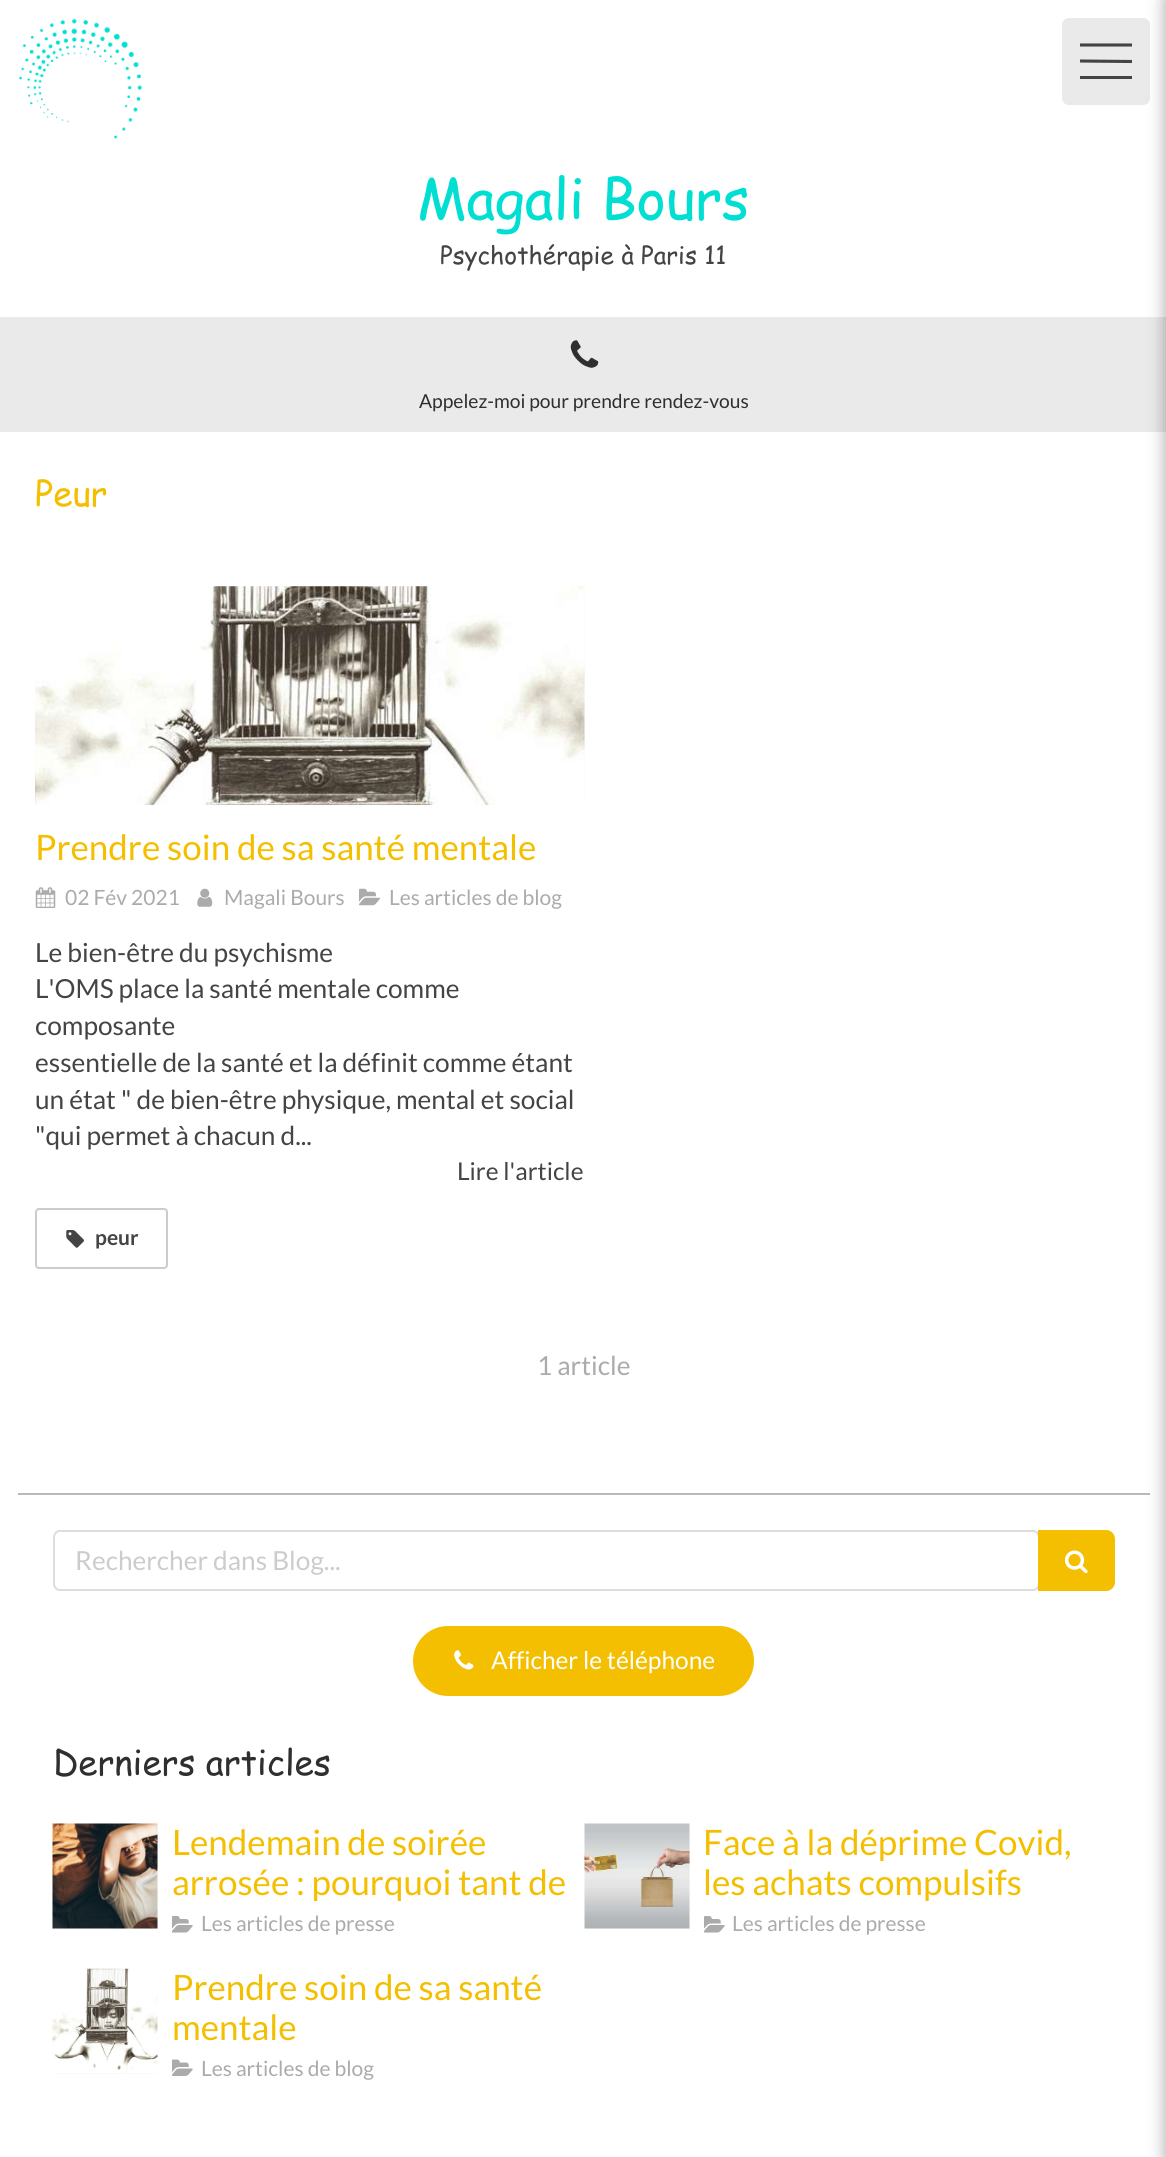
import math
import cairo

surface = cairo.ImageSurface(cairo.FORMAT_RGB24, 1166, 2157)
c = cairo.Context(surface)
options = cairo.FontOptions()
options.set_hint_metrics(cairo.HINT_METRICS_OFF)
options.set_hint_style(cairo.HINT_STYLE_NONE)
c.set_font_options(options)
c.set_miter_limit(4)
def C(code):
 c.set_source_rgb(*(v / 255 for v in bytes.fromhex(code[-6:])))
def F(family, size, italic, bold):
 c.select_font_face(family, cairo.FONT_SLANT_ITALIC if italic else cairo.FONT_SLANT_NORMAL, cairo.FONT_WEIGHT_BOLD if bold else cairo.FONT_WEIGHT_NORMAL)
 c.set_font_size(size)
def T(x, y, s):
 c.move_to(x, y)
 c.show_text(s)
def R(x, y, w, h):
 c.rectangle(x, y, w, h)
 c.fill()
def Q(x, y, w, h, r):
 c.new_sub_path()
 for i, (u, v) in enumerate([(x + w - r, y + h - r), (x + r, y + h - r), (x + r, y + r), (x + w - r, y + r)]):
  c.arc(u, v, r, i * math.pi / 2, (i + 1) * math.pi / 2)
 c.close_path()
def S(x, y, w, h, r, blur, alpha):
 c.push_group_with_content(cairo.CONTENT_ALPHA)
 c.set_operator(cairo.OPERATOR_SOURCE)
 for i in range(15, -16, -2):
  e = blur * i / 6
  if min(w, h) + 2 * e > 0:
   c.set_source_rgba(0, 0, 0, alpha * math.erfc((i - 1) / 8.5) / 2)
   Q(x - e, y - e, w + 2 * e, h + 2 * e, max(0, min(r + e + blur * .6, min(w, h) / 2 + e)))
   c.fill()
 c.mask(c.pop_group())
def I(path, x, y, w, h):
 c.save()
 c.set_source_surface(cairo.ImageSurface.create_from_png(path), x, y)
 c.rectangle(x, y, w, h)
 c.fill()
 c.restore()
C('ffffff')
c.paint()
I('1.png',19,18,123,121)
C('eaeaea')
Q(1062,18,88,87,7)
c.fill()
c.new_path()
c.move_to(1080,61)
c.line_to(1132,61.5)
c.move_to(1080,45)
c.line_to(1132,45)
C('444444')
c.set_line_width(3.1)
c.stroke()
R(1080,76,52,3)
F('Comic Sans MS',56,0,0)
C('00dfd2')
T(417,219,'Magali Bours')
F('Comic Sans MS',24.5,0,0)
C('444444')
T(440,264,'Psychothérapie à Paris 11')
C('eaeaea')
R(0,317,1166,115)
I('2.png',570,340,29,28)
F('Lato',19.25,0,0)
C('2f2f2f')
T(419,408,'Appelez-moi pour prendre rendez-vous')
F('Comic Sans MS',35,0,0)
C('f3bf00')
T(35,506,'Peur')
C('b9b9b9')
R(18,1493,1132,2)
C('fafafa')
R(35,586,550,219)
I('3.png',35,586,550,219)
F('Lato',35,0,0)
C('f3bf00')
T(35,860,'Prendre soin de sa santé mentale')
I('4.png',35,887,21,21)
F('Lato',21,0,0)
C('ababab')
T(65,905,'02 Fév 2021')
I('5.png',197,888,16,19)
T(224,905,'Magali Bours')
I('6.png',359,888,21,18)
T(389,905,'Les articles de blog')
F('Lato',26.25,0,0)
C('444444')
T(35,962,'Le bien-être du psychisme')
T(35,998,'L\'OMS place la santé mentale comme')
T(35,1035,'composante')
T(35,1072,'essentielle de la santé et la définit comme étant')
T(35,1109,'un état " de bien-être physique, mental et social')
T(35,1145,'"qui permet à chacun d...')
F('Lato',24.5,0,0)
T(457,1180,'Lire l\'article')
Q(36,1209,131,59,3)
C('cccccc')
c.set_line_width(2)
c.stroke()
I('7.png',66,1230,18,18)
F('Lato',21,0,1)
C('444444')
T(95,1245,'peur')
F('Lato',26.25,0,0)
C('ababab')
T(537,1375,'1 article')
Q(54,1531,985,59,6)
C('dddddd')
c.stroke()
C('cccccc')
T(75,1570,'Rechercher dans Blog...')
C('f3bf00')
c.new_path()
c.move_to(1038,1530)
c.line_to(1106,1530)
c.curve_to(1111,1530,1115,1534,1115,1539)
c.line_to(1115,1582)
c.curve_to(1115,1587,1111,1591,1106,1591)
c.line_to(1038,1591)
c.close_path()
c.fill()
I('8.png',1064,1550,24,23)
Q(415,1628,337,66,33)
c.fill_preserve()
c.set_line_width(4)
c.stroke()
I('9.png',454,1650,20,20)
F('Lato',24.5,0,0)
C('ffffff')
T(491,1669,'Afficher le téléphone')
F('Comic Sans MS',35,0,0)
C('2f2f2f')
T(53,1775,'Derniers articles')
C('fafafa')
R(53,1824,105,105)
I('10.png',52,1823,106,106)
F('Lato',35,0,0)
C('f3bf00')
T(172,1855,'Lendemain de soirée')
T(172,1895,'arrosée : pourquoi tant de')
I('11.png',172,1916,21,17)
F('Lato',21,0,0)
C('ababab')
T(201,1931,'Les articles de presse')
C('fafafa')
R(585,1824,105,105)
I('12.png',584,1823,106,106)
F('Lato',35,0,0)
C('f3bf00')
T(703,1855,'Face à la déprime Covid,')
T(703,1895,'les achats compulsifs')
I('11.png',704,1916,21,17)
F('Lato',21,0,0)
C('ababab')
T(732,1931,'Les articles de presse')
C('fafafa')
R(53,1969,105,105)
I('13.png',52,1968,106,105)
F('Lato',35,0,0)
C('f3bf00')
T(172,2000,'Prendre soin de sa santé')
T(172,2040,'mentale')
I('14.png',172,2059,21,17)
F('Lato',21,0,0)
C('ababab')
T(201,2076,'Les articles de blog')
C('000000')
S(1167,0,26,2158,0,9,.4)
surface.write_to_png('o.png')
